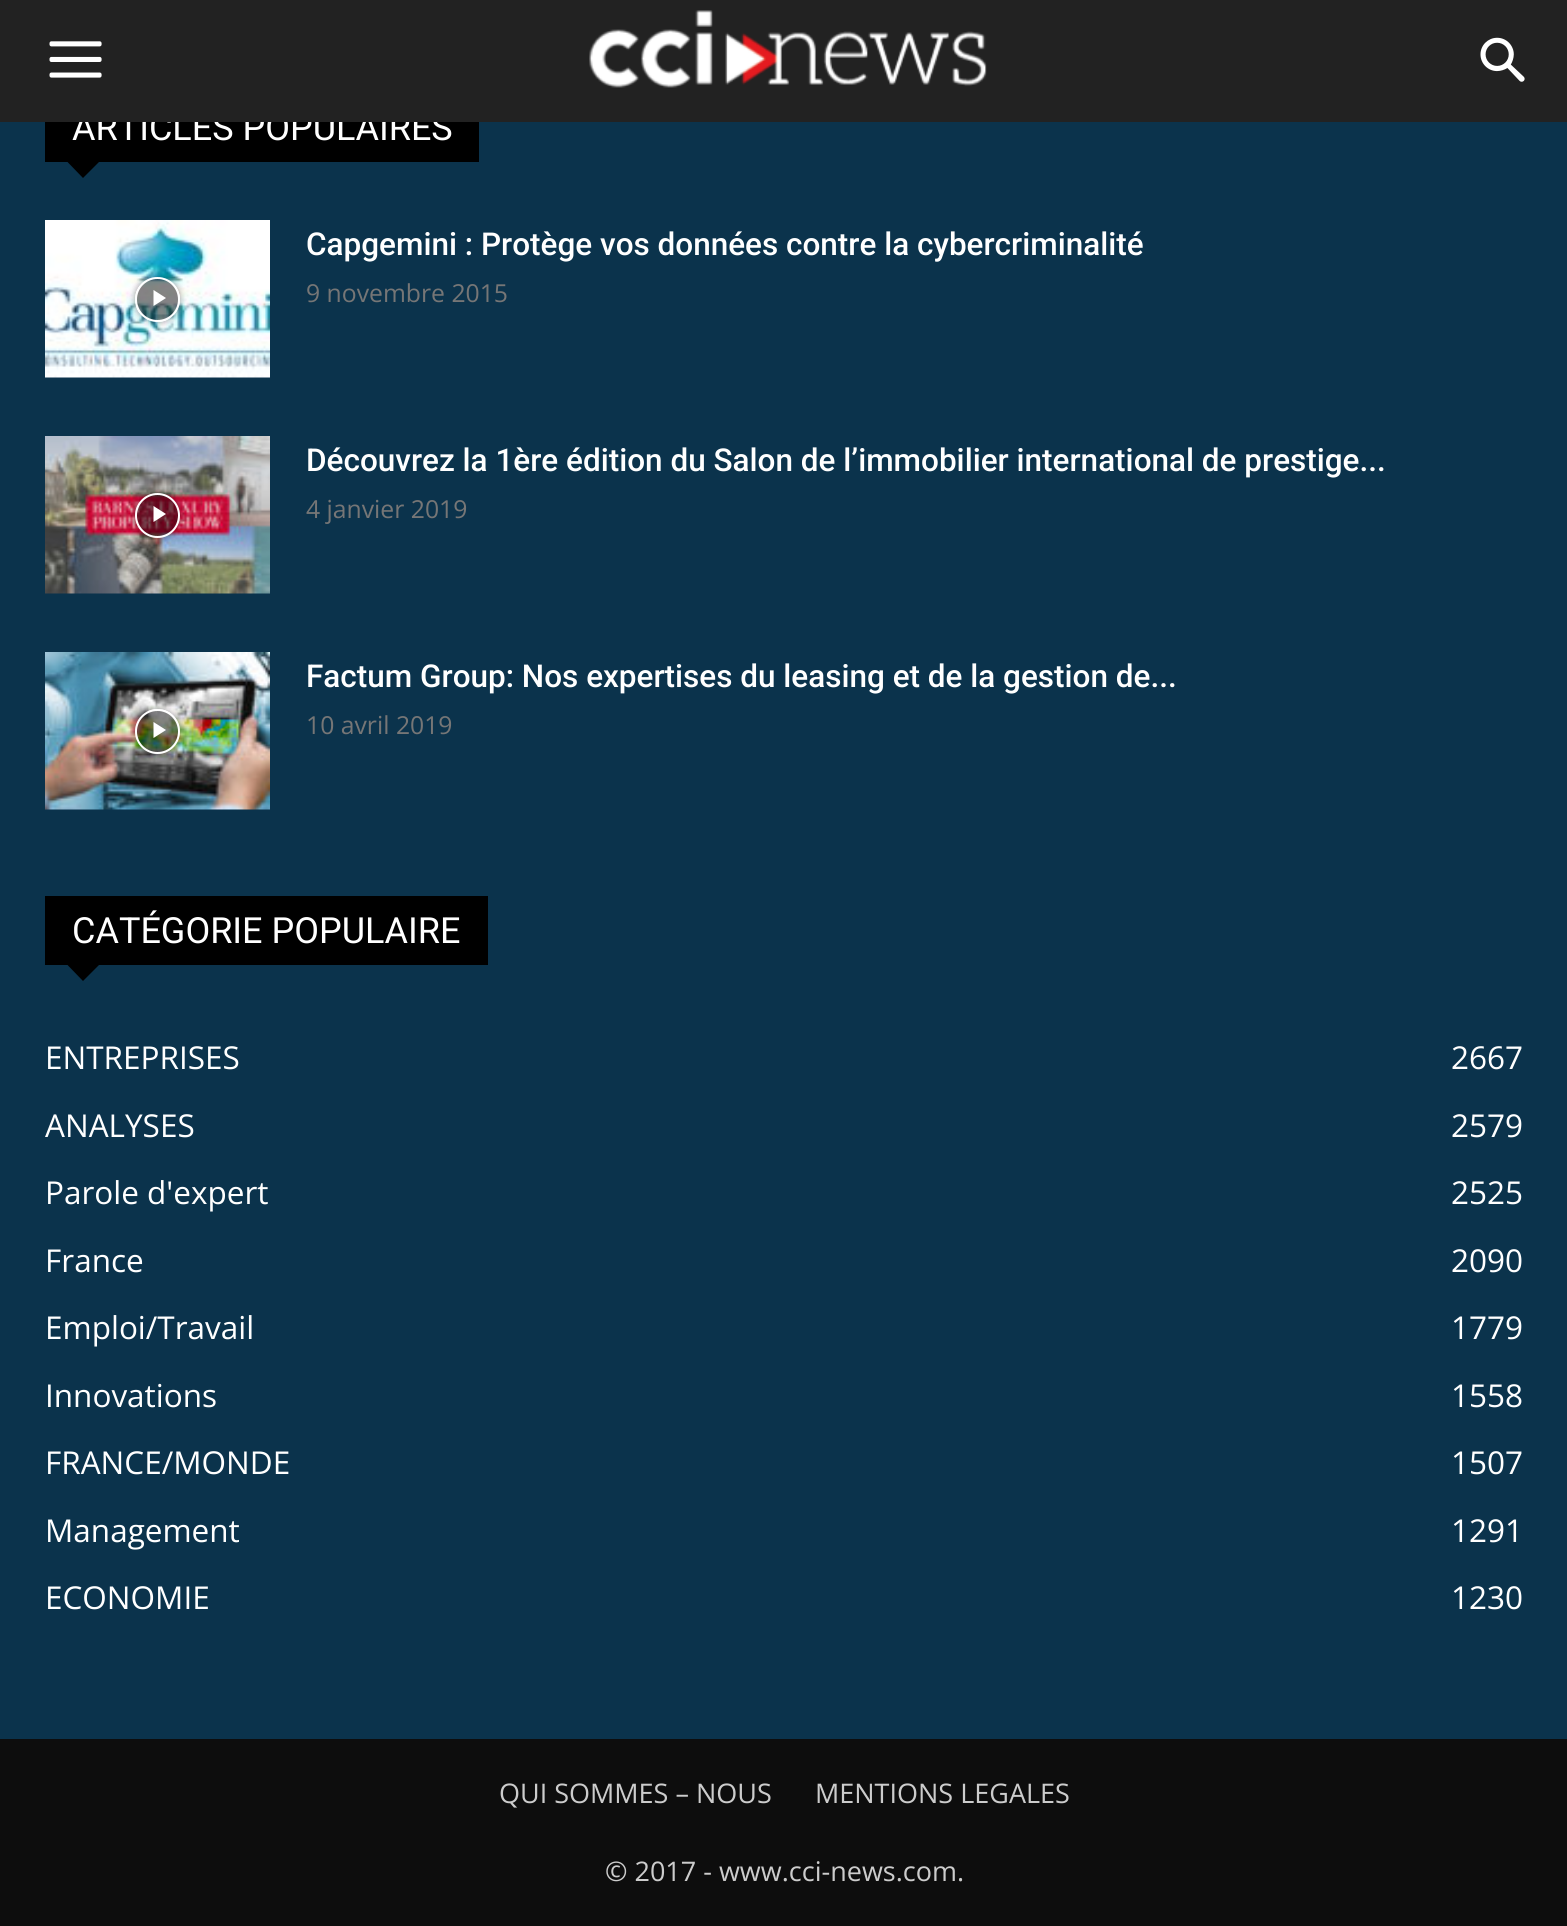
import math
import cairo

surface = cairo.ImageSurface(cairo.FORMAT_RGB24, 1567, 1926)
c = cairo.Context(surface)
options = cairo.FontOptions()
options.set_hint_metrics(cairo.HINT_METRICS_OFF)
options.set_hint_style(cairo.HINT_STYLE_NONE)
c.set_font_options(options)
c.set_miter_limit(4)
def C(code):
 c.set_source_rgb(*(v / 255 for v in bytes.fromhex(code[-6:])))
def F(family, size, italic, bold):
 c.select_font_face(family, cairo.FONT_SLANT_ITALIC if italic else cairo.FONT_SLANT_NORMAL, cairo.FONT_WEIGHT_BOLD if bold else cairo.FONT_WEIGHT_NORMAL)
 c.set_font_size(size)
def T(x, y, s):
 c.move_to(x, y)
 c.show_text(s)
def R(x, y, w, h):
 c.rectangle(x, y, w, h)
 c.fill()
def Q(x, y, w, h, r):
 c.new_sub_path()
 for i, (u, v) in enumerate([(x + w - r, y + h - r), (x + r, y + h - r), (x + r, y + r), (x + w - r, y + r)]):
  c.arc(u, v, r, i * math.pi / 2, (i + 1) * math.pi / 2)
 c.close_path()
def S(x, y, w, h, r, blur, alpha):
 c.push_group_with_content(cairo.CONTENT_ALPHA)
 c.set_operator(cairo.OPERATOR_SOURCE)
 for i in range(15, -16, -2):
  e = blur * i / 6
  if min(w, h) + 2 * e > 0:
   c.set_source_rgba(0, 0, 0, alpha * math.erfc((i - 1) / 8.5) / 2)
   Q(x - e, y - e, w + 2 * e, h + 2 * e, max(0, min(r + e + blur * .6, min(w, h) / 2 + e)))
   c.fill()
 c.mask(c.pop_group())
def I(path, x, y, w, h):
 c.save()
 c.set_source_surface(cairo.ImageSurface.create_from_png(path), x, y)
 c.rectangle(x, y, w, h)
 c.fill()
 c.restore()
C('0d0d0d')
c.paint()
C('0b334c')
R(0,122,1567,1617)
C('000000')
R(45,122,434,40)
F('Roboto',36,0,0)
C('ffffff')
T(72,140,'ARTICLES POPULAIRES')
C('222222')
R(0,0,1567,122)
I('1.png',49,41,53,37)
I('2.png',589,10,398,78)
I('3.png',1480,37,45,45)
C('000000')
c.new_path()
c.move_to(67.5,162)
c.line_to(99,162)
c.line_to(83,178)
c.close_path()
c.fill()
I('4.png',45,220,225,158)
c.save()
c.set_fill_rule(cairo.FILL_RULE_EVEN_ODD)
c.new_path()
c.move_to(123,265)
c.line_to(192,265)
c.line_to(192,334)
c.line_to(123,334)
c.close_path()
c.move_to(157.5,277)
c.curve_to(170,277,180,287,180,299.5)
c.curve_to(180,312,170,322,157.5,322)
c.curve_to(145,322,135,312,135,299.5)
c.curve_to(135,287,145,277,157.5,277)
c.close_path()
c.clip()
C('000000')
S(135,277,45,45,22.5,3.5,.4)
c.restore()
c.set_source_rgba(0,0,0,0.48)
c.arc(157.5,299.5,21.5,0,2 * math.pi)
c.fill_preserve()
C('ffffff')
c.stroke()
c.new_path()
c.move_to(153.5,290)
c.line_to(153.5,306)
c.line_to(166,298)
c.close_path()
c.fill()
F('Roboto Medium',31.5,0,0)
T(306,255,'Capgemini : Protège vos données contre la cybercriminalité')
F('Open Sans',24.75,0,0)
C('767676')
T(306,302,'9 novembre 2015')
I('5.png',45,436,225,158)
c.save()
c.set_fill_rule(cairo.FILL_RULE_EVEN_ODD)
c.new_path()
c.move_to(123,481)
c.line_to(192,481)
c.line_to(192,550)
c.line_to(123,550)
c.close_path()
c.move_to(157.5,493)
c.curve_to(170,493,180,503,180,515.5)
c.curve_to(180,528,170,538,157.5,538)
c.curve_to(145,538,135,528,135,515.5)
c.curve_to(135,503,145,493,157.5,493)
c.close_path()
c.clip()
C('000000')
S(135,493,45,45,22.5,3.5,.4)
c.restore()
c.set_source_rgba(0,0,0,0.48)
c.arc(157.5,515.5,21.5,0,2 * math.pi)
c.fill_preserve()
C('ffffff')
c.stroke()
c.new_path()
c.move_to(153.5,506)
c.line_to(153.5,522)
c.line_to(166,514)
c.close_path()
c.fill()
F('Roboto Medium',31.5,0,0)
T(306,471,'Découvrez la 1ère édition du Salon de l’immobilier international de prestige...')
F('Open Sans',24.75,0,0)
C('767676')
T(306,518,'4 janvier 2019')
I('6.png',45,652,225,158)
c.save()
c.set_fill_rule(cairo.FILL_RULE_EVEN_ODD)
c.new_path()
c.move_to(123,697)
c.line_to(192,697)
c.line_to(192,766)
c.line_to(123,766)
c.close_path()
c.move_to(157.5,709)
c.curve_to(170,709,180,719,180,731.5)
c.curve_to(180,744,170,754,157.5,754)
c.curve_to(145,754,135,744,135,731.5)
c.curve_to(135,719,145,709,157.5,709)
c.close_path()
c.clip()
C('000000')
S(135,709,45,45,22.5,3.5,.4)
c.restore()
c.set_source_rgba(0,0,0,0.48)
c.arc(157.5,731.5,21.5,0,2 * math.pi)
c.fill_preserve()
C('ffffff')
c.stroke()
c.new_path()
c.move_to(153.5,722)
c.line_to(153.5,738)
c.line_to(166,730)
c.close_path()
c.fill()
F('Roboto Medium',31.5,0,0)
T(306,687,'Factum Group: Nos expertises du leasing et de la gestion de...')
F('Open Sans',24.75,0,0)
C('767676')
T(306,734,'10 avril 2019')
C('000000')
R(45,896,443,69)
F('Roboto',36,0,0)
C('ffffff')
T(72,943,'CATÉGORIE POPULAIRE')
C('000000')
c.new_path()
c.move_to(67.5,965)
c.line_to(99,965)
c.line_to(83,981)
c.close_path()
c.fill()
F('Open Sans',31.5,0,0)
C('ffffff')
T(45,1069,'ENTREPRISES')
T(1451,1069,'2667')
T(45,1137,'ANALYSES')
T(1451,1137,'2579')
T(45,1204,'Parole d\'expert')
T(1451,1204,'2525')
T(45,1272,'France')
T(1451,1272,'2090')
T(45,1339,'Emploi/Travail')
T(1451,1339,'1779')
T(45,1407,'Innovations')
T(1451,1407,'1558')
T(45,1474,'FRANCE/MONDE')
T(1451,1474,'1507')
T(45,1542,'Management')
T(1451,1542,'1291')
T(45,1609,'ECONOMIE')
T(1451,1609,'1230')
F('Open Sans',27,0,0)
C('cccccc')
T(499,1803,'QUI SOMMES – NOUS')
T(815,1803,'MENTIONS LEGALES')
T(605,1881,'© 2017 - www.cci-news.com.')
surface.write_to_png('o.png')
